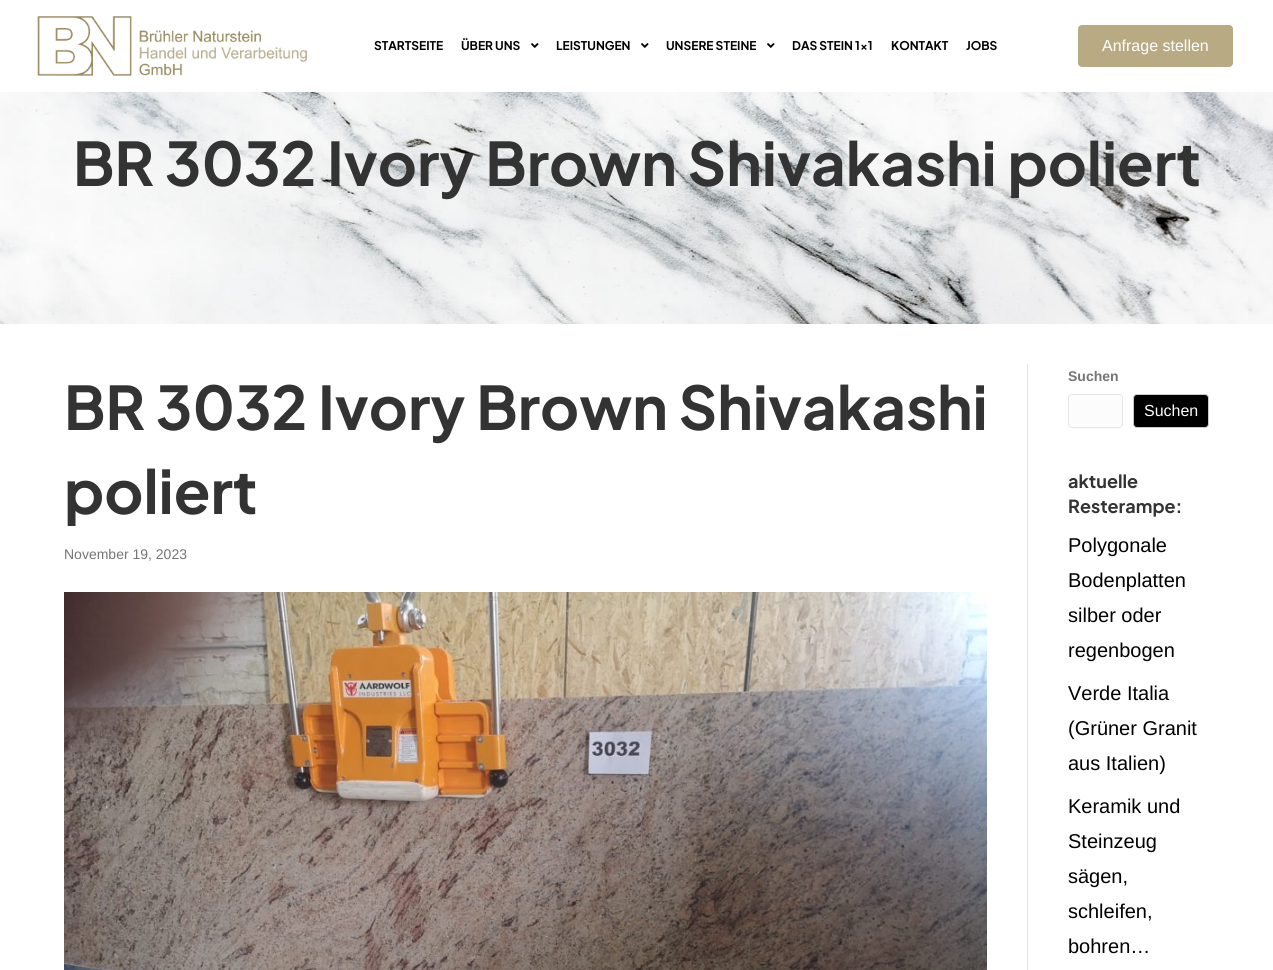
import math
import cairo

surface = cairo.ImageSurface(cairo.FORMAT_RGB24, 1273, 970)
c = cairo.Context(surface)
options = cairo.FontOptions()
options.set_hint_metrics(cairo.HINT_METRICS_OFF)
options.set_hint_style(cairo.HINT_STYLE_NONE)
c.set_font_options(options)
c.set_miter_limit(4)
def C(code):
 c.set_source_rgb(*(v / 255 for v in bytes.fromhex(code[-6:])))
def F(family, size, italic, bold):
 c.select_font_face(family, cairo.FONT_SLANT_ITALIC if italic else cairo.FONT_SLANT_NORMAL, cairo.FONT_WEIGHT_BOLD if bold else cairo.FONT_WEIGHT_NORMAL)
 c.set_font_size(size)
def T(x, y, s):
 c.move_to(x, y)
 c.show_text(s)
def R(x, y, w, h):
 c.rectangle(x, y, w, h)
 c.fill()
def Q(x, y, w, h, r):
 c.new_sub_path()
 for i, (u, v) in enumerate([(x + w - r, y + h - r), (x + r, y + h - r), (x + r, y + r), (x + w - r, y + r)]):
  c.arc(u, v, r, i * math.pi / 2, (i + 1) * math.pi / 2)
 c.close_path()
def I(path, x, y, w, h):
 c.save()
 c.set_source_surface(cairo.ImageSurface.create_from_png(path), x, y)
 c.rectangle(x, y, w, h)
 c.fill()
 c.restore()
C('ffffff')
c.paint()
I('1.png',37,16,271,60)
F('Plus Jakarta Sans',12,0,1)
C('000000')
T(374,50,'STARTSEITE')
T(461,50,'ÜBER UNS')
I('2.png',531,43,8,5)
T(556,50,'LEISTUNGEN')
I('2.png',641,43,8,5)
T(666,50,'UNSERE STEINE')
I('2.png',767,43,8,5)
T(792,50,'DAS STEIN 1×1')
T(891,50,'KONTAKT')
T(966,50,'JOBS')
C('b8aa83')
Q(1078,25,155,42,4)
c.fill()
F('Liberation Sans',16,0,0)
C('ffffff')
T(1102,51,'Anfrage stellen')
I('3.png',0,92,1273,232)
F('Plus Jakarta Sans',60,0,1)
C('333333')
T(73,186,'BR 3032 Ivory Brown Shivakashi poliert')
C('e6e6e6')
R(1027,364,1,606)
C('333333')
T(64,430,'BR 3032 Ivory Brown Shivakashi')
T(64,514,'poliert')
F('Liberation Sans',14,0,0)
C('757575')
T(64,559,'November 19, 2023')
I('4.png',64,592,923,378)
F('Liberation Sans',14,0,1)
T(1068,381,'Suchen')
C('fcfcfc')
Q(1068.5,394.5,54,33,3.5)
c.fill_preserve()
C('e6e6e6')
c.set_line_width(1)
c.stroke()
C('000000')
Q(1133.5,394.5,75,33,3.5)
c.fill_preserve()
C('cccccc')
c.stroke()
F('Liberation Sans',16,0,0)
C('ffffff')
T(1144,416,'Suchen')
F('Plus Jakarta Sans',18,0,1)
C('333333')
T(1068,488,'aktuelle')
T(1068,513,'Resterampe:')
F('Liberation Sans',20,0,0)
C('000000')
T(1068,552,'Polygonale')
T(1068,587,'Bodenplatten')
T(1068,622,'silber oder')
T(1068,657,'regenbogen')
T(1068,700,'Verde Italia')
T(1068,735,'(Grüner Granit')
T(1068,770,'aus Italien)')
T(1068,813,'Keramik und')
T(1068,848,'Steinzeug')
T(1068,883,'sägen,')
T(1068,918,'schleifen,')
T(1068,953,'bohren…')
surface.write_to_png('o.png')
